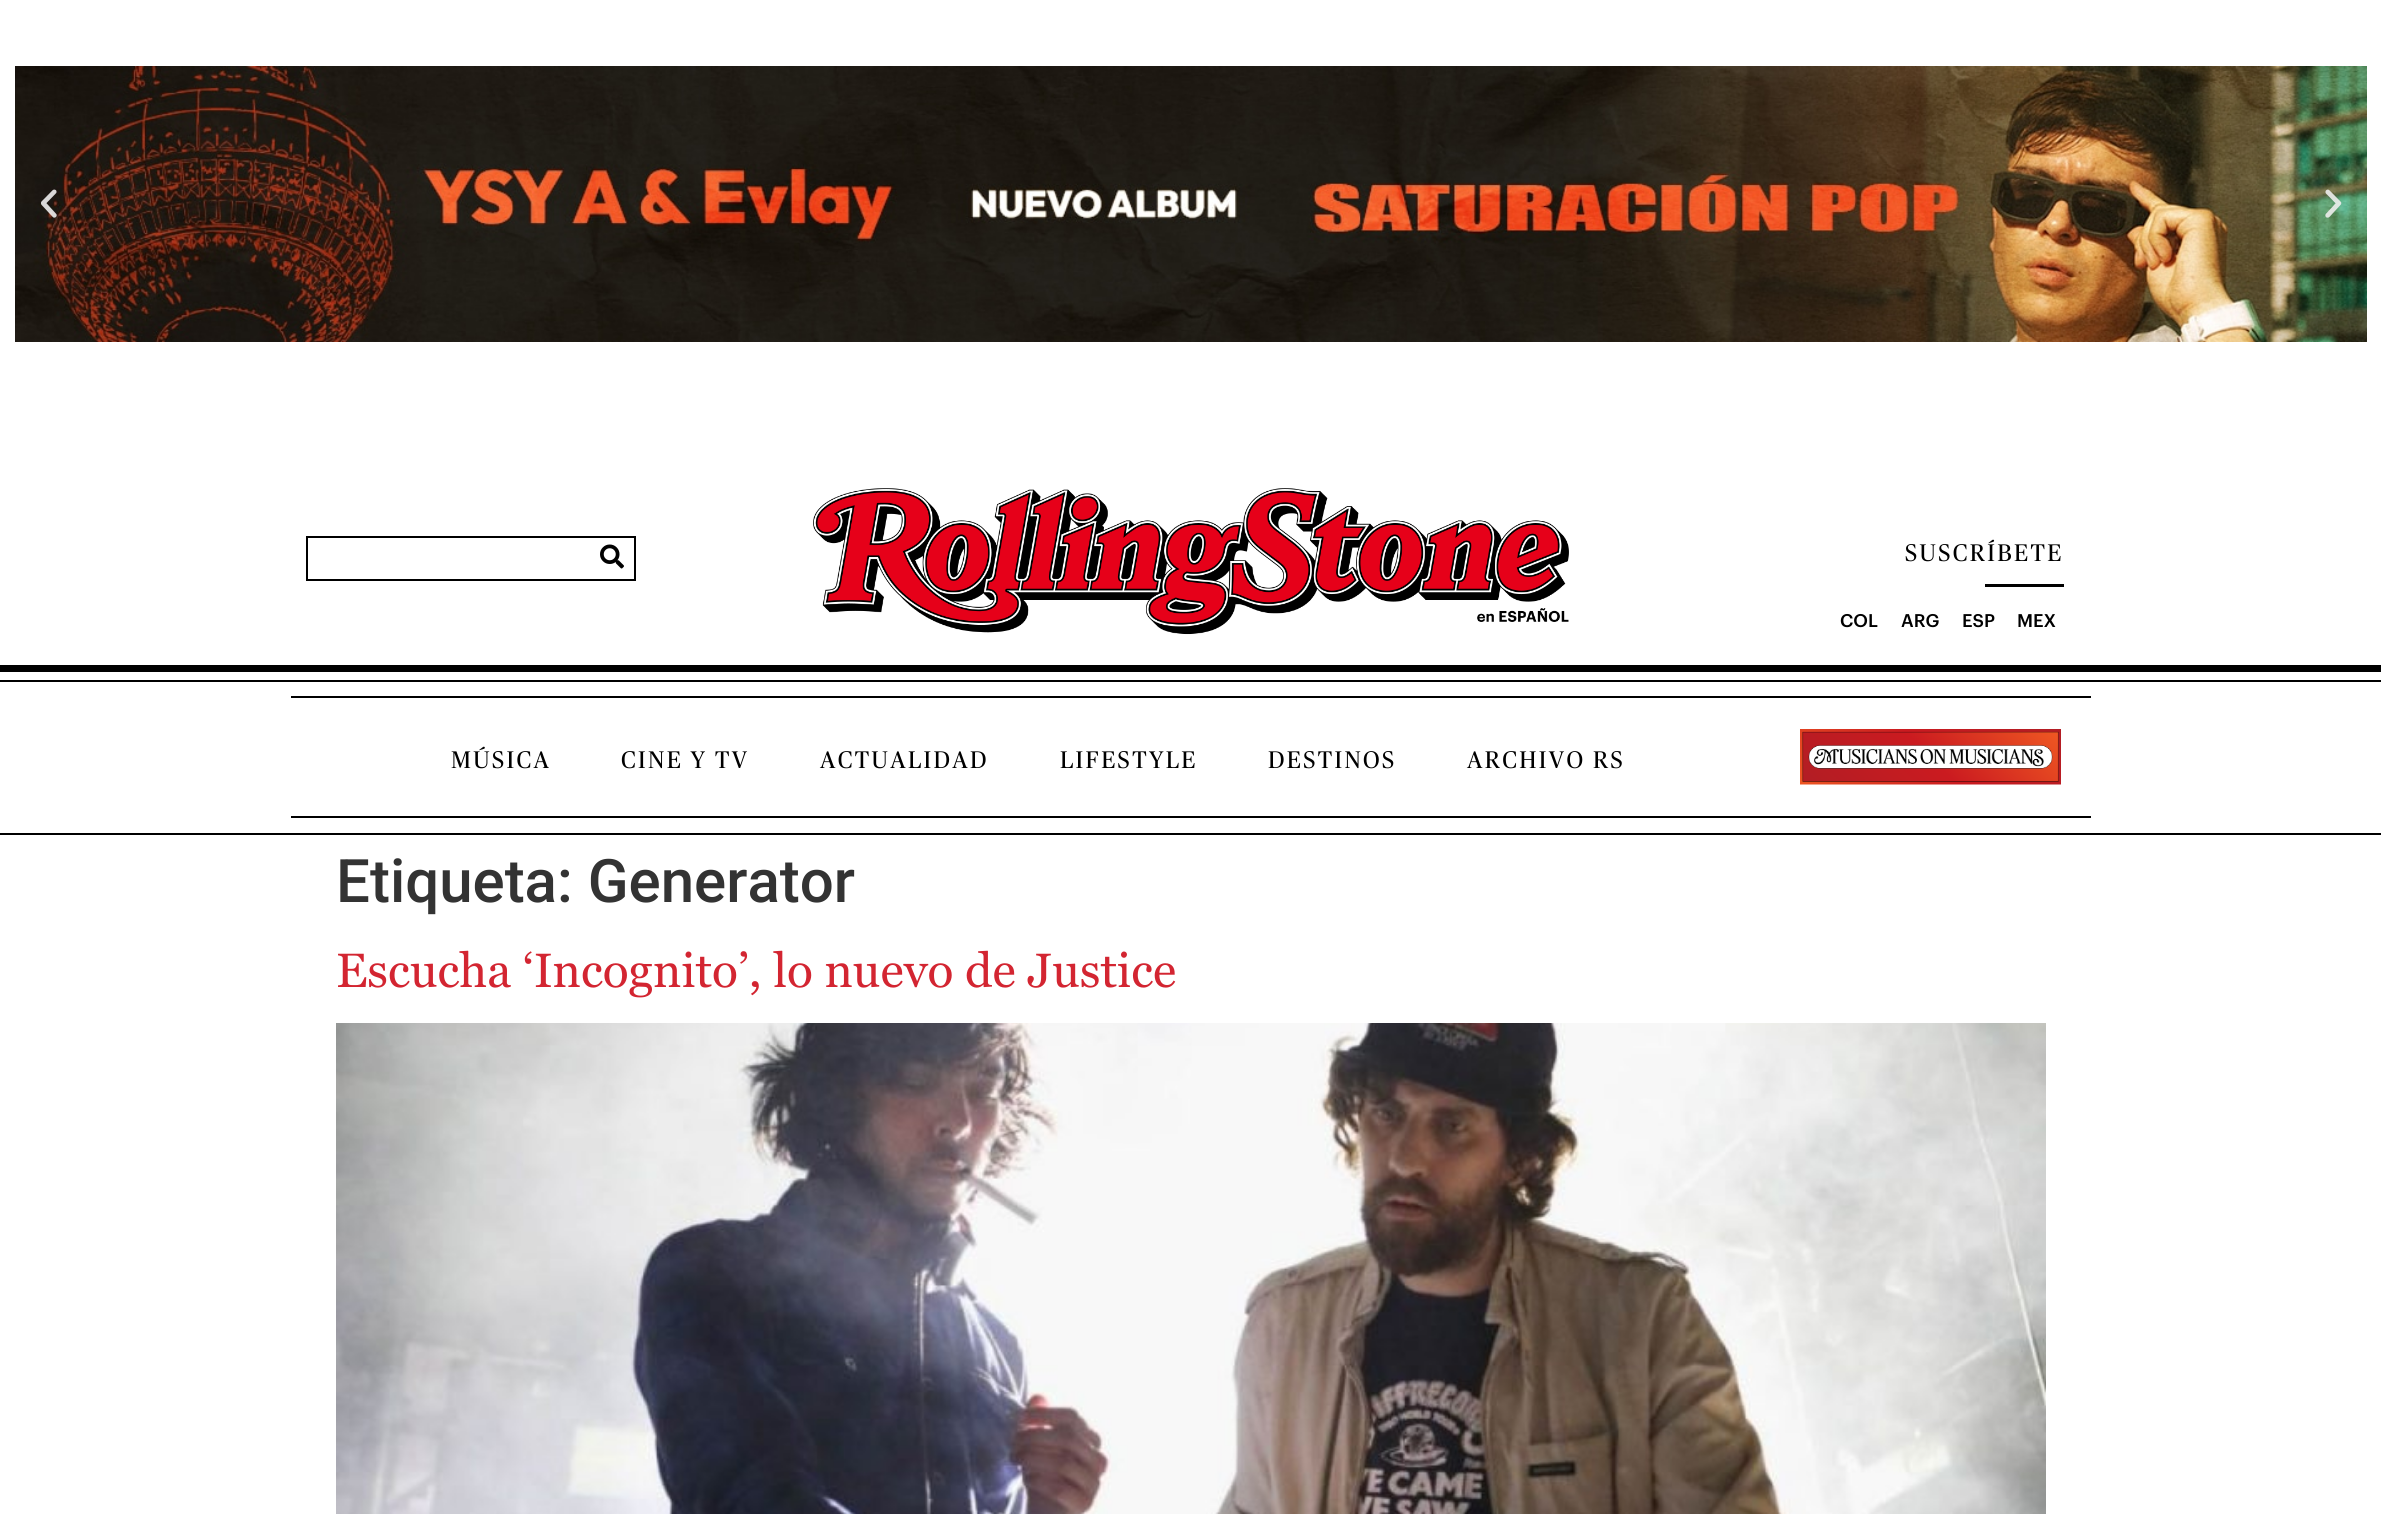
#include <cairo/cairo.h>
#include <math.h>
#include <stddef.h>

static cairo_t *cr;

static void use_color(int r, int g, int b) {
  cairo_set_source_rgb(cr, r / 255.0, g / 255.0, b / 255.0);
}

static void text(double x, double y, const char *s, const char *family, double size, int italic, int bold, int r, int g, int b) {
  cairo_select_font_face(cr, family, italic ? CAIRO_FONT_SLANT_ITALIC : CAIRO_FONT_SLANT_NORMAL,
    bold ? CAIRO_FONT_WEIGHT_BOLD : CAIRO_FONT_WEIGHT_NORMAL);
  cairo_set_font_size(cr, size);
  use_color(r, g, b);
  cairo_move_to(cr, x, y);
  cairo_show_text(cr, s);
}

static void spaced_text(double x, double y, const char *s, double letter, double word) {
  cairo_move_to(cr, x, y);
  while (*s) {
    char ch[5] = {0};
    int n = 0;
    do ch[n++] = *s++; while ((*s & 0xC0) == 0x80);
    cairo_show_text(cr, ch);
    cairo_rel_move_to(cr, letter + word * (*ch == ' '), 0);
  }
}

static void box(double x, double y, double w, double h, int r, int g, int b) {
  use_color(r, g, b);
  cairo_rectangle(cr, x, y, w, h);
  cairo_fill(cr);
}

static void picture(const char *path, double x, double y, double w, double h) {
  cairo_surface_t *image = cairo_image_surface_create_from_png(path);
  cairo_save(cr);
  cairo_set_source_surface(cr, image, x, y);
  cairo_rectangle(cr, x, y, w, h);
  cairo_fill(cr);
  cairo_restore(cr);
  cairo_surface_destroy(image);
}

static void draw(void) {
  use_color(255, 255, 255);
  cairo_paint(cr);
  picture("img_01.png", 15, 66, 2352, 276);
  picture("img_02.png", 41, 189, 16, 29);
  picture("img_03.png", 2325, 189, 17, 29);
  cairo_rectangle(cr, 307, 537, 328, 43);
  use_color(0, 0, 0);
  cairo_stroke(cr);
  picture("img_04.png", 600, 544, 24, 25);
  picture("img_05.png", 813, 488, 756, 147);
  box(1985, 584, 79, 3, 0, 0, 0);
  box(0, 665, 2381, 7, 0, 0, 0);
  box(0, 680, 2381, 2, 0, 0, 0);
  box(0, 833, 2381, 2, 0, 0, 0);
  box(291, 696, 1800, 2, 0, 0, 0);
  box(291, 816, 1800, 2, 0, 0, 0);
  picture("img_06.png", 1800, 729, 261, 56);
  picture("img_07.png", 336, 1023, 1710, 491);
  cairo_select_font_face(cr, "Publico", CAIRO_FONT_SLANT_NORMAL, CAIRO_FONT_WEIGHT_NORMAL);
  cairo_set_font_size(cr, 24);
  spaced_text(1905, 561, "SUSCRÍBETE", 2.4, 0);
  text(1840, 627, "COL", "Graphik Medium", 18, 0, 0, 0, 0, 0);
  text(1901, 627, "ARG", "Graphik Medium", 18, 0, 0, 0, 0, 0);
  text(1962, 627, "ESP", "Graphik Medium", 18, 0, 0, 0, 0, 0);
  text(2017, 627, "MEX", "Graphik Medium", 18, 0, 0, 0, 0, 0);
  cairo_select_font_face(cr, "Publico", CAIRO_FONT_SLANT_NORMAL, CAIRO_FONT_WEIGHT_NORMAL);
  cairo_set_font_size(cr, 24);
  spaced_text(451, 768, "MÚSICA", 2.4, 0);
  spaced_text(621, 768, "CINE Y TV", 2.4, 0);
  spaced_text(820, 768, "ACTUALIDAD", 2.4, 0);
  spaced_text(1060, 768, "LIFESTYLE", 2.4, 0);
  spaced_text(1268, 768, "DESTINOS", 2.4, 0);
  spaced_text(1467, 768, "ARCHIVO RS", 2.4, 0);
  text(336, 902, "Etiqueta: Generator", "Roboto Medium", 60, 0, 0, 51, 51, 51);
  text(336, 987, "Escucha ‘Incognito’, lo nuevo de Justice", "Georgia", 48, 0, 0, 211, 37, 49);
}

int main(void) {
  cairo_surface_t *surface = cairo_image_surface_create(CAIRO_FORMAT_RGB24, 2381, 1514);
  cr = cairo_create(surface);
  cairo_font_options_t *options = cairo_font_options_create();
  cairo_font_options_set_hint_metrics(options, CAIRO_HINT_METRICS_OFF);
  cairo_font_options_set_hint_style(options, CAIRO_HINT_STYLE_NONE);
  cairo_set_font_options(cr, options);
  cairo_set_miter_limit(cr, 4);
  draw();
  cairo_surface_write_to_png(surface, "out.png");
  cairo_font_options_destroy(options);
  cairo_destroy(cr);
  cairo_surface_destroy(surface);
  return 0;
}
